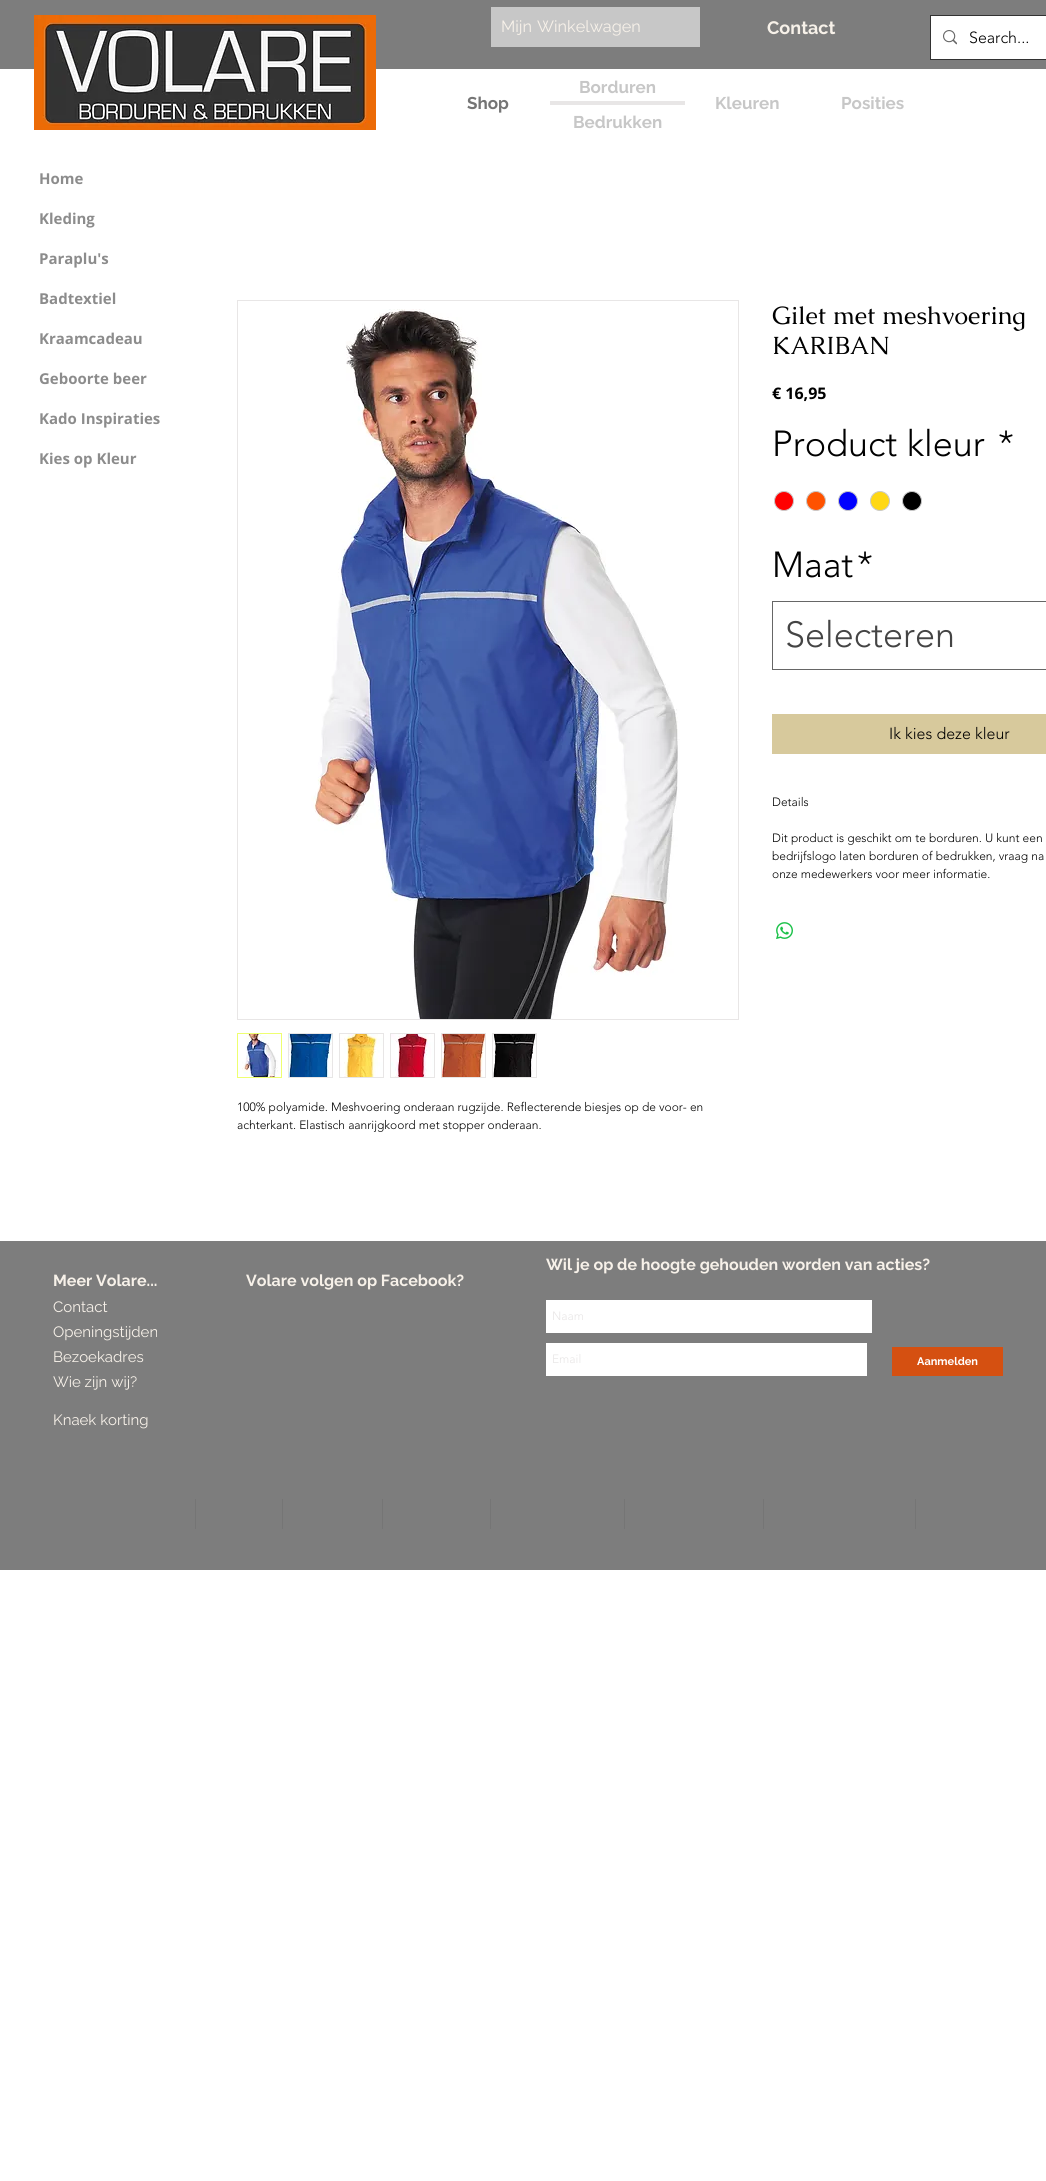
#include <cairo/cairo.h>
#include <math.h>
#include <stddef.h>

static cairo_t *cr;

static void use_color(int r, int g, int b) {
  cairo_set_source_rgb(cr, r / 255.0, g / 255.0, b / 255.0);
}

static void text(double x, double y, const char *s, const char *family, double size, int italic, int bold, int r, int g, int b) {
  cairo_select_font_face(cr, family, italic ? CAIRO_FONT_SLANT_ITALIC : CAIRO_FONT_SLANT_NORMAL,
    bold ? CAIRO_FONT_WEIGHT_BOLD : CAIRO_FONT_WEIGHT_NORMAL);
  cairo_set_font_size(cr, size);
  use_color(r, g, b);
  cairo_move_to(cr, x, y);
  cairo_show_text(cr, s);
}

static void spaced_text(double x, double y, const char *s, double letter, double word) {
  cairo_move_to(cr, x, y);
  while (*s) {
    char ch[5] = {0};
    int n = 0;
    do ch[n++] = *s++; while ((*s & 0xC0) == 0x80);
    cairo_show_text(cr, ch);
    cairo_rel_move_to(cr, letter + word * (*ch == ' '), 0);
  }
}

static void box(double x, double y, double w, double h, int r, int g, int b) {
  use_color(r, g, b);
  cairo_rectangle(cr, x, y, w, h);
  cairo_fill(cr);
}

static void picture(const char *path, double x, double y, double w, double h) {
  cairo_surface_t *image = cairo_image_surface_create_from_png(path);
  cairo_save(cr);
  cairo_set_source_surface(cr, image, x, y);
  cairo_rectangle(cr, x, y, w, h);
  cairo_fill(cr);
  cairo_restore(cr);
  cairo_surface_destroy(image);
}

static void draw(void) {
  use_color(255, 255, 255);
  cairo_paint(cr);
  box(0, 0, 1046, 69, 125, 125, 125);
  picture("img_01.png", 34, 15, 342, 115);
  box(491, 7, 209, 40, 199, 199, 199);
  cairo_rectangle(cr, 930.5, 15.5, 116, 44);
  use_color(50, 50, 50);
  cairo_set_line_width(cr, 1);
  cairo_stroke(cr);
  box(931, 16, 115, 43, 255, 255, 255);
  picture("img_02.png", 943, 30, 14, 15);
  box(550, 101, 135, 4, 232, 230, 230);
  use_color(255, 0, 0);
  cairo_arc(cr, 784, 501, 9.5, 0, 2 * M_PI);
  cairo_fill_preserve(cr);
  use_color(201, 201, 201);
  cairo_stroke(cr);
  use_color(255, 82, 0);
  cairo_arc(cr, 816, 501, 9.5, 0, 2 * M_PI);
  cairo_fill_preserve(cr);
  use_color(201, 201, 201);
  cairo_stroke(cr);
  use_color(0, 0, 255);
  cairo_arc(cr, 848, 501, 9.5, 0, 2 * M_PI);
  cairo_fill_preserve(cr);
  use_color(201, 201, 201);
  cairo_stroke(cr);
  use_color(255, 216, 20);
  cairo_arc(cr, 880, 501, 9.5, 0, 2 * M_PI);
  cairo_fill_preserve(cr);
  use_color(201, 201, 201);
  cairo_stroke(cr);
  use_color(0, 0, 0);
  cairo_arc(cr, 912, 501, 9.5, 0, 2 * M_PI);
  cairo_fill_preserve(cr);
  use_color(201, 201, 201);
  cairo_stroke(cr);
  cairo_rectangle(cr, 772.5, 601.5, 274, 68);
  use_color(102, 102, 102);
  cairo_stroke(cr);
  box(772, 714, 274, 40, 215, 201, 156);
  picture("img_03.png", 776, 922, 17, 17);
  cairo_rectangle(cr, 237.5, 300.5, 501, 719);
  use_color(232, 230, 230);
  cairo_stroke(cr);
  picture("img_04.png", 311, 309, 369, 710);
  cairo_rectangle(cr, 237.5, 1033.5, 44, 44);
  use_color(238, 255, 112);
  cairo_stroke(cr);
  picture("img_05.png", 238, 1034, 43, 43);
  box(288, 1033, 45, 45, 232, 230, 230);
  picture("img_06.png", 289, 1034, 43, 43);
  box(339, 1033, 45, 45, 232, 230, 230);
  picture("img_07.png", 340, 1034, 43, 43);
  box(390, 1033, 45, 45, 232, 230, 230);
  picture("img_08.png", 391, 1034, 43, 43);
  box(441, 1033, 45, 45, 232, 230, 230);
  picture("img_09.png", 442, 1034, 43, 43);
  box(492, 1033, 45, 45, 232, 230, 230);
  picture("img_10.png", 493, 1034, 43, 43);
  box(0, 1241, 1046, 329, 125, 125, 125);
  box(546, 1300, 326, 33, 255, 255, 255);
  box(546, 1343, 321, 33, 255, 255, 255);
  box(892, 1347, 111, 29, 213, 80, 17);
  box(195, 1499, 1, 30, 117, 117, 117);
  box(282, 1499, 1, 30, 117, 117, 117);
  box(382, 1499, 1, 30, 117, 117, 117);
  box(490, 1499, 1, 30, 117, 117, 117);
  box(624, 1499, 1, 30, 117, 117, 117);
  box(763, 1499, 1, 30, 117, 117, 117);
  box(915, 1499, 1, 30, 117, 117, 117);
  cairo_select_font_face(cr, "Raleway", CAIRO_FONT_SLANT_NORMAL, CAIRO_FONT_WEIGHT_NORMAL);
  cairo_set_font_size(cr, 16.25);
  use_color(247, 241, 233);
  spaced_text(501, 32, "Mijn Winkelwagen", 0, 1);
  text(767, 34, "Contact", "Raleway", 18, 0, 1, 247, 241, 233);
  text(969, 43, "Search...", "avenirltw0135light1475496 Light", 16, 0, 0, 0, 0, 0);
  text(579, 93, "Borduren", "Raleway", 17, 0, 1, 199, 199, 199);
  text(467, 109, "Shop", "Raleway", 17, 0, 1, 117, 117, 117);
  text(715, 109, "Kleuren", "Raleway", 17, 0, 1, 199, 199, 199);
  text(841, 109, "Posities", "Raleway", 17, 0, 1, 199, 199, 199);
  text(573, 128, "Bedrukken", "Raleway", 17, 0, 1, 199, 199, 199);
  text(39, 184, "Home", "Open Sans", 15, 0, 1, 140, 140, 140);
  text(39, 224, "Kleding", "Open Sans", 15, 0, 1, 140, 140, 140);
  text(39, 264, "Paraplu's", "Open Sans", 15, 0, 1, 140, 140, 140);
  text(39, 304, "Badtextiel", "Open Sans", 15, 0, 1, 140, 140, 140);
  text(39, 344, "Kraamcadeau", "Open Sans", 15, 0, 1, 140, 140, 140);
  text(39, 384, "Geboorte beer", "Open Sans", 15, 0, 1, 140, 140, 140);
  text(39, 424, "Kado Inspiraties", "Open Sans", 15, 0, 1, 140, 140, 140);
  text(39, 464, "Kies op Kleur", "Open Sans", 15, 0, 1, 140, 140, 140);
  text(772, 324, "Gilet met meshvoering", "Caudex", 25, 0, 0, 0, 0, 0);
  text(772, 354, "KARIBAN", "Caudex", 25, 0, 0, 0, 0, 0);
  text(772, 399, "€ 16,95", "Open Sans", 16, 0, 1, 0, 0, 0);
  text(772, 456, "Product kleur", "avenirltw0135light1475496 Light", 36, 0, 0, 0, 0, 0);
  text(998, 456, "*", "avenirltw0135light1475496 Light", 36, 0, 0, 0, 0, 0);
  text(772, 577, "Maat", "avenirltw0135light1475496 Light", 36, 0, 0, 0, 0, 0);
  text(857, 577, "*", "avenirltw0135light1475496 Light", 36, 0, 0, 0, 0, 0);
  text(785, 647, "Selecteren", "avenirltw0135light1475496 Light", 36, 0, 0, 68, 68, 68);
  text(889, 739, "Ik kies deze kleur", "avenirltw0135light1475496 Light", 16, 0, 0, 0, 0, 0);
  text(772, 806, "Details", "avenirltw0135light1475496 Light", 12, 0, 0, 0, 0, 0);
  text(772, 842, "Dit product is geschikt om te borduren. U kunt een", "avenirltw0135light1475496 Light", 12, 0, 0, 0, 0, 0);
  text(772, 860, "bedrijfslogo laten borduren of bedrukken, vraag na", "avenirltw0135light1475496 Light", 12, 0, 0, 0, 0, 0);
  text(772, 878, "onze medewerkers voor meer informatie.", "avenirltw0135light1475496 Light", 12, 0, 0, 0, 0, 0);
  text(237, 1111, "100% polyamide. Meshvoering onderaan rugzijde. Reflecterende biesjes op de voor- en", "avenirltw0135light1475496 Light", 12, 0, 0, 0, 0, 0);
  text(237, 1129, "achterkant. Elastisch aanrijgkoord met stopper onderaan.", "avenirltw0135light1475496 Light", 12, 0, 0, 0, 0, 0);
  text(53, 1286, "Meer Volare...", "Raleway", 16, 0, 1, 247, 241, 233);
  text(246, 1286, "Volare volgen op Facebook?", "Raleway", 16, 0, 1, 247, 241, 233);
  text(546, 1270, "Wil je op de hoogte gehouden worden van acties?", "Raleway", 16, 0, 1, 247, 241, 233);
  text(552, 1320, "Naam", "avenirltw0135light1475496 Light", 12, 0, 0, 232, 230, 230);
  text(552, 1363, "Email", "avenirltw0135light1475496 Light", 12, 0, 0, 232, 230, 230);
  text(917, 1365, "Aanmelden", "Raleway", 11, 0, 1, 255, 255, 255);
  text(53, 1312, "Contact", "Raleway", 15, 0, 0, 247, 241, 233);
  text(53, 1337, "Openingstijden", "Raleway", 15, 0, 0, 247, 241, 233);
  text(53, 1362, "Bezoekadres", "Raleway", 15, 0, 0, 247, 241, 233);
  text(53, 1387, "Wie zijn wij?", "Raleway", 15, 0, 0, 247, 241, 233);
  text(53, 1425, "Knaek korting", "Raleway", 15, 0, 0, 247, 241, 233);
}

int main(void) {
  cairo_surface_t *surface = cairo_image_surface_create(CAIRO_FORMAT_RGB24, 1046, 2181);
  cr = cairo_create(surface);
  cairo_font_options_t *options = cairo_font_options_create();
  cairo_font_options_set_hint_metrics(options, CAIRO_HINT_METRICS_OFF);
  cairo_font_options_set_hint_style(options, CAIRO_HINT_STYLE_NONE);
  cairo_set_font_options(cr, options);
  cairo_set_miter_limit(cr, 4);
  draw();
  cairo_surface_write_to_png(surface, "out.png");
  cairo_font_options_destroy(options);
  cairo_destroy(cr);
  cairo_surface_destroy(surface);
  return 0;
}
